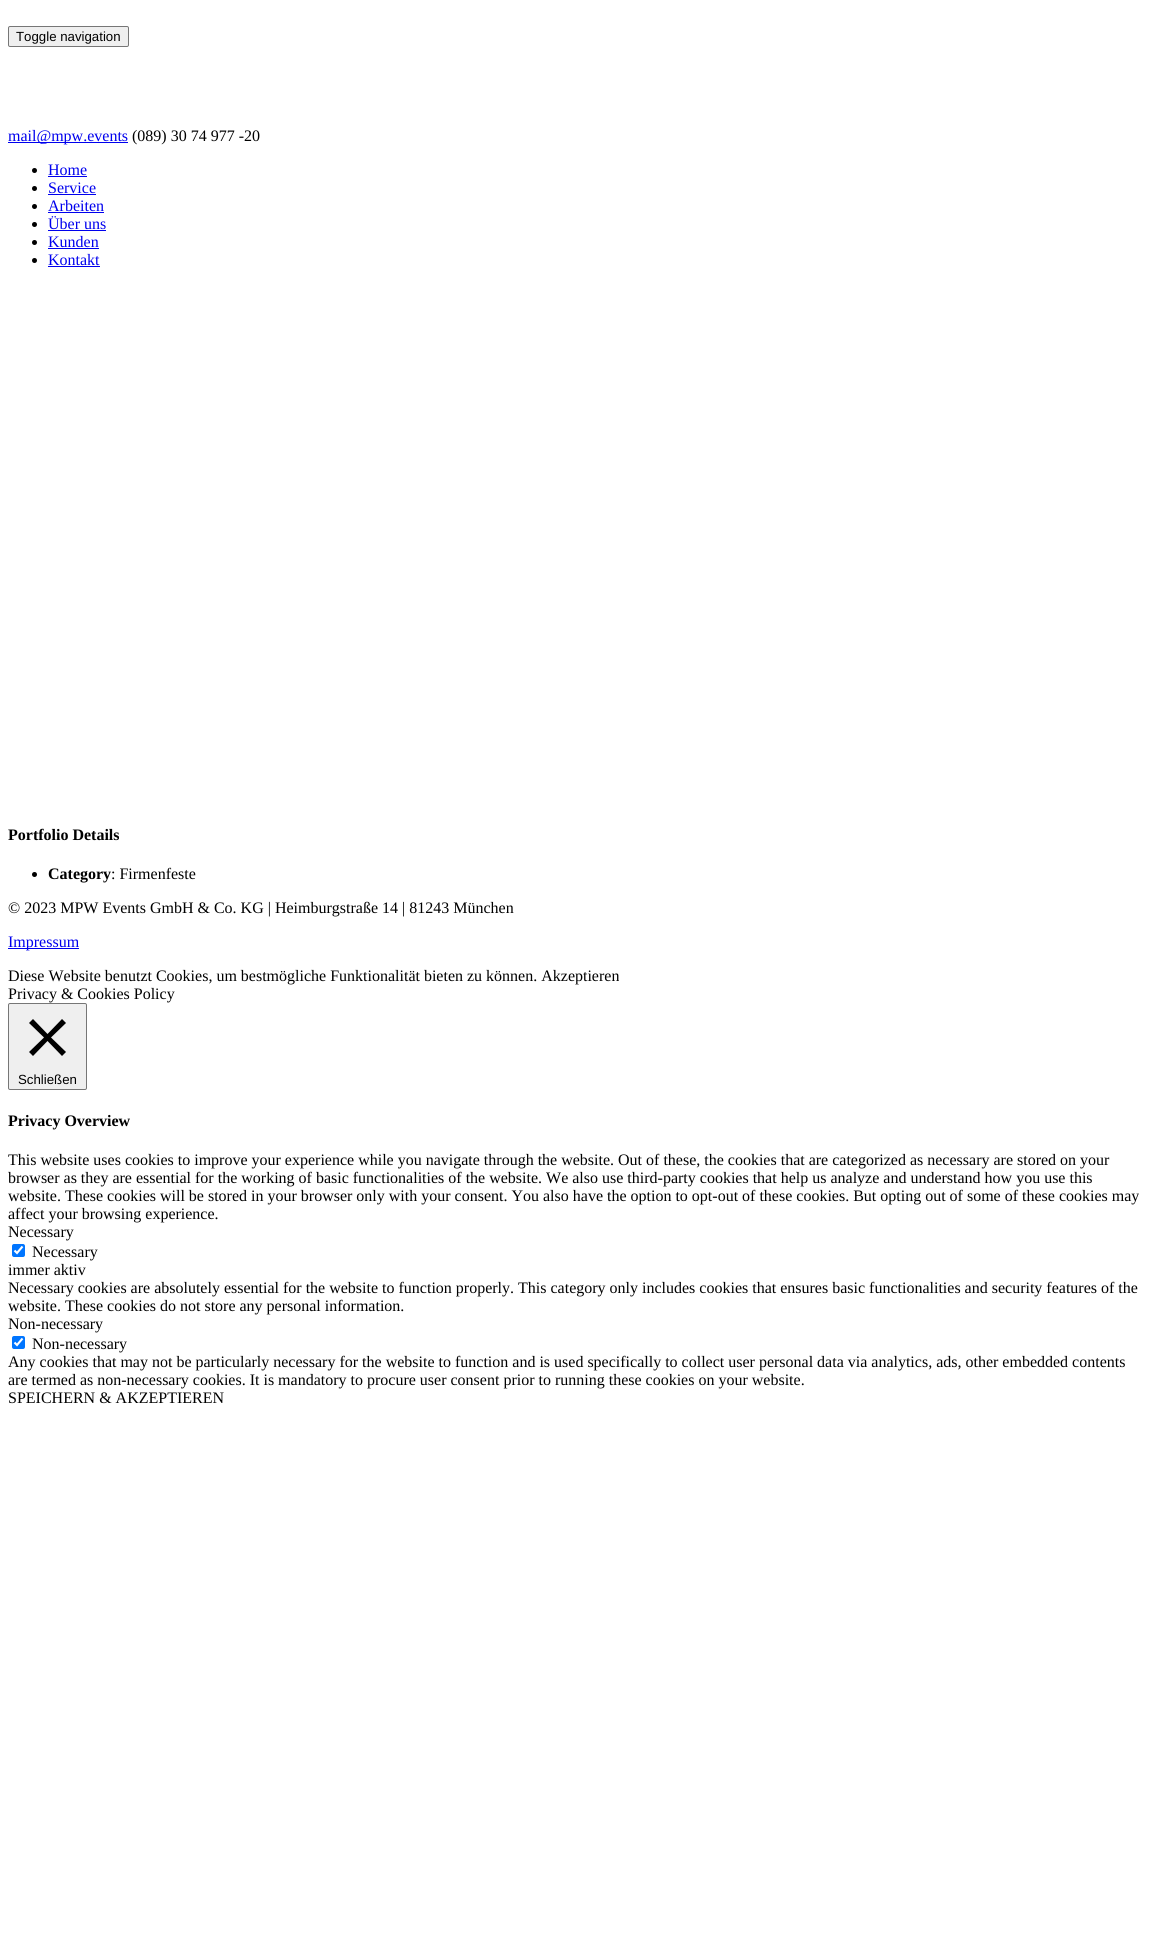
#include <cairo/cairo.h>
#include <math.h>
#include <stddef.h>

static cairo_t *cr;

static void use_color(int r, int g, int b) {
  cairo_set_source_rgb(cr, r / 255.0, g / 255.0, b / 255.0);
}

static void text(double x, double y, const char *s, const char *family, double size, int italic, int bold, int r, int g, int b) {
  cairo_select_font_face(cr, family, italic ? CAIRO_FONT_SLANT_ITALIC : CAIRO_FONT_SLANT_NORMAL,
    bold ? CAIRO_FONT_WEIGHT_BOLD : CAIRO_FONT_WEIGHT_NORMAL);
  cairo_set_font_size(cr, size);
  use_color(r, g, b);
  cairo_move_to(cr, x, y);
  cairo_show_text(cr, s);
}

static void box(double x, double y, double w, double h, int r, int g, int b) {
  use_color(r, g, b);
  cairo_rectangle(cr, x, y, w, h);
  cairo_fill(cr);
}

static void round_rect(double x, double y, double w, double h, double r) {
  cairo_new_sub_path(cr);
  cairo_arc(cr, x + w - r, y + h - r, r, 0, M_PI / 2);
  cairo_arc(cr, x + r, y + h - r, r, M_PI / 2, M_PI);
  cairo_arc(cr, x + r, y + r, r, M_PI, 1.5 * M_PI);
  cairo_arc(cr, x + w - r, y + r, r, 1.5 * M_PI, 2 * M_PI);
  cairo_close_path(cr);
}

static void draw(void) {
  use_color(255, 255, 255);
  cairo_paint(cr);
  use_color(239, 239, 239);
  round_rect(8.5, 26.5, 120, 20, 1.5);
  cairo_fill_preserve(cr);
  use_color(118, 118, 118);
  cairo_set_line_width(cr, 1);
  cairo_stroke(cr);
  box(8, 142, 120, 1, 0, 0, 238);
  use_color(0, 0, 0);
  cairo_arc(cr, 34.5, 170.5, 2.5, 0, 2 * M_PI);
  cairo_fill(cr);
  box(48, 176, 39, 1, 0, 0, 238);
  use_color(0, 0, 0);
  cairo_arc(cr, 34.5, 188.5, 2.5, 0, 2 * M_PI);
  cairo_fill(cr);
  box(48, 194, 48, 1, 0, 0, 238);
  use_color(0, 0, 0);
  cairo_arc(cr, 34.5, 206.5, 2.5, 0, 2 * M_PI);
  cairo_fill(cr);
  box(48, 212, 56, 1, 0, 0, 238);
  use_color(0, 0, 0);
  cairo_arc(cr, 34.5, 224.5, 2.5, 0, 2 * M_PI);
  cairo_fill(cr);
  box(48, 230, 58, 1, 0, 0, 238);
  use_color(0, 0, 0);
  cairo_arc(cr, 34.5, 242.5, 2.5, 0, 2 * M_PI);
  cairo_fill(cr);
  box(48, 248, 51, 1, 0, 0, 238);
  use_color(0, 0, 0);
  cairo_arc(cr, 34.5, 260.5, 2.5, 0, 2 * M_PI);
  cairo_fill(cr);
  box(48, 266, 52, 1, 0, 0, 238);
  use_color(0, 0, 0);
  cairo_arc(cr, 34.5, 874.5, 2.5, 0, 2 * M_PI);
  cairo_fill(cr);
  box(8, 948, 71, 1, 0, 0, 238);
  use_color(239, 239, 239);
  round_rect(8.5, 1003.5, 78, 86, 1.5);
  cairo_fill_preserve(cr);
  use_color(118, 118, 118);
  cairo_stroke(cr);
  use_color(0, 0, 0);
  cairo_new_path(cr);
  cairo_move_to(cr, 66, 1023);
  cairo_line_to(cr, 62, 1019);
  cairo_line_to(cr, 47.5, 1034);
  cairo_line_to(cr, 33, 1019);
  cairo_line_to(cr, 29, 1023);
  cairo_line_to(cr, 44, 1037.5);
  cairo_line_to(cr, 29, 1052);
  cairo_line_to(cr, 33, 1056);
  cairo_line_to(cr, 47.5, 1041);
  cairo_line_to(cr, 62, 1056);
  cairo_line_to(cr, 66, 1052);
  cairo_line_to(cr, 51, 1037.5);
  cairo_close_path(cr);
  cairo_fill(cr);
  use_color(0, 117, 255);
  round_rect(12, 1244, 13, 13, 2);
  cairo_fill(cr);
  cairo_new_path(cr);
  cairo_move_to(cr, 14.5, 1250.5);
  cairo_line_to(cr, 17, 1253);
  cairo_line_to(cr, 22.5, 1246.5);
  use_color(255, 255, 255);
  cairo_set_line_width(cr, 2.1);
  cairo_stroke(cr);
  use_color(0, 117, 255);
  round_rect(12, 1336, 13, 13, 2);
  cairo_fill(cr);
  cairo_new_path(cr);
  cairo_move_to(cr, 14.5, 1342.5);
  cairo_line_to(cr, 17, 1345);
  cairo_line_to(cr, 22.5, 1338.5);
  use_color(255, 255, 255);
  cairo_stroke(cr);
  text(16, 41, "Toggle navigation", "Liberation Sans", 13.25, 0, 0, 0, 0, 0);
  text(8, 141, "mail@mpw.events", "Liberation Serif", 16, 0, 0, 0, 0, 238);
  text(132, 141, "(089) 30 74 977 -20", "Liberation Serif", 16, 0, 0, 0, 0, 0);
  text(48, 175, "Home", "Liberation Serif", 16, 0, 0, 0, 0, 238);
  text(48, 193, "Service", "Liberation Serif", 16, 0, 0, 0, 0, 238);
  text(48, 211, "Arbeiten", "Liberation Serif", 16, 0, 0, 0, 0, 238);
  text(48, 229, "Über uns", "Liberation Serif", 16, 0, 0, 0, 0, 238);
  text(48, 247, "Kunden", "Liberation Serif", 16, 0, 0, 0, 0, 238);
  text(48, 265, "Kontakt", "Liberation Serif", 16, 0, 0, 0, 0, 238);
  text(8, 840, "Portfolio Details", "Liberation Serif", 16, 0, 1, 0, 0, 0);
  text(48, 879, "Category", "Liberation Serif", 16, 0, 1, 0, 0, 0);
  text(111, 879, ": Firmenfeste", "Liberation Serif", 16, 0, 0, 0, 0, 0);
  text(8, 913, "© 2023 MPW Events GmbH & Co. KG | Heimburgstraße 14 | 81243 München", "Liberation Serif", 16, 0, 0, 0, 0, 0);
  text(8, 947, "Impressum", "Liberation Serif", 16, 0, 0, 0, 0, 238);
  text(8, 981, "Diese Website benutzt Cookies, um bestmögliche Funktionalität bieten zu können. Akzeptieren", "Liberation Serif", 16, 0, 0, 0, 0, 0);
  text(8, 999, "Privacy & Cookies Policy", "Liberation Serif", 16, 0, 0, 0, 0, 0);
  text(18, 1084, "Schließen", "Liberation Sans", 13.25, 0, 0, 0, 0, 0);
  text(8, 1126, "Privacy Overview", "Liberation Serif", 16, 0, 1, 0, 0, 0);
  text(8, 1165, "This website uses cookies to improve your experience while you navigate through the website. Out of these, the cookies that are categorized as necessary are stored on your", "Liberation Serif", 16, 0, 0, 0, 0, 0);
  text(8, 1183, "browser as they are essential for the working of basic functionalities of the website. We also use third-party cookies that help us analyze and understand how you use this", "Liberation Serif", 16, 0, 0, 0, 0, 0);
  text(8, 1201, "website. These cookies will be stored in your browser only with your consent. You also have the option to opt-out of these cookies. But opting out of some of these cookies may", "Liberation Serif", 16, 0, 0, 0, 0, 0);
  text(8, 1219, "affect your browsing experience.", "Liberation Serif", 16, 0, 0, 0, 0, 0);
  text(8, 1237, "Necessary", "Liberation Serif", 16, 0, 0, 0, 0, 0);
  text(32, 1257, "Necessary", "Liberation Serif", 16, 0, 0, 0, 0, 0);
  text(8, 1275, "immer aktiv", "Liberation Serif", 16, 0, 0, 0, 0, 0);
  text(8, 1293, "Necessary cookies are absolutely essential for the website to function properly. This category only includes cookies that ensures basic functionalities and security features of the", "Liberation Serif", 16, 0, 0, 0, 0, 0);
  text(8, 1311, "website. These cookies do not store any personal information.", "Liberation Serif", 16, 0, 0, 0, 0, 0);
  text(8, 1329, "Non-necessary", "Liberation Serif", 16, 0, 0, 0, 0, 0);
  text(32, 1349, "Non-necessary", "Liberation Serif", 16, 0, 0, 0, 0, 0);
  text(8, 1367, "Any cookies that may not be particularly necessary for the website to function and is used specifically to collect user personal data via analytics, ads, other embedded contents", "Liberation Serif", 16, 0, 0, 0, 0, 0);
  text(8, 1385, "are termed as non-necessary cookies. It is mandatory to procure user consent prior to running these cookies on your website.", "Liberation Serif", 16, 0, 0, 0, 0, 0);
  text(8, 1403, "SPEICHERN & AKZEPTIEREN", "Liberation Serif", 16, 0, 0, 0, 0, 0);
}

int main(void) {
  cairo_surface_t *surface = cairo_image_surface_create(CAIRO_FORMAT_RGB24, 1149, 1952);
  cr = cairo_create(surface);
  cairo_font_options_t *options = cairo_font_options_create();
  cairo_font_options_set_hint_metrics(options, CAIRO_HINT_METRICS_OFF);
  cairo_font_options_set_hint_style(options, CAIRO_HINT_STYLE_NONE);
  cairo_set_font_options(cr, options);
  cairo_set_miter_limit(cr, 4);
  draw();
  cairo_surface_write_to_png(surface, "out.png");
  cairo_font_options_destroy(options);
  cairo_destroy(cr);
  cairo_surface_destroy(surface);
  return 0;
}
